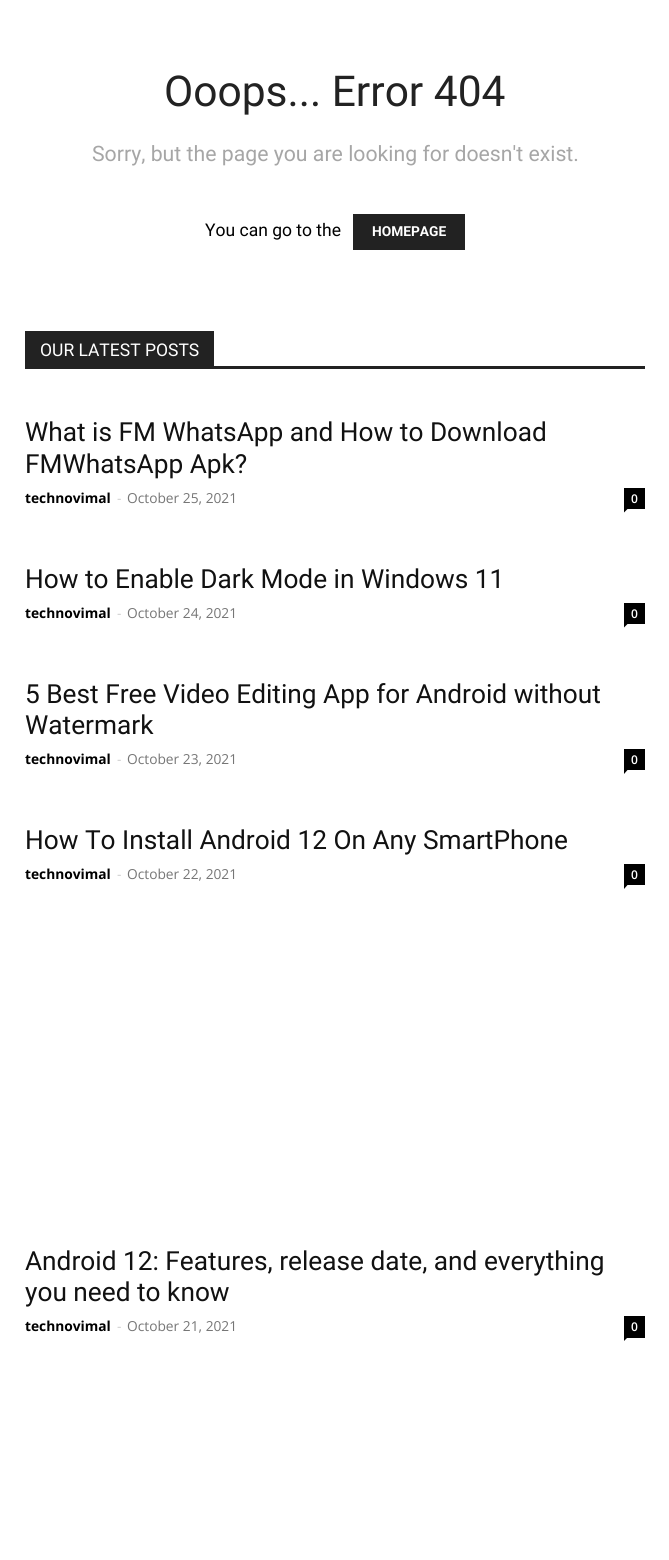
#include <cairo/cairo.h>
#include <math.h>
#include <stddef.h>

static cairo_t *cr;

static void use_color(int r, int g, int b) {
  cairo_set_source_rgb(cr, r / 255.0, g / 255.0, b / 255.0);
}

static void text(double x, double y, const char *s, const char *family, double size, int italic, int bold, int r, int g, int b) {
  cairo_select_font_face(cr, family, italic ? CAIRO_FONT_SLANT_ITALIC : CAIRO_FONT_SLANT_NORMAL,
    bold ? CAIRO_FONT_WEIGHT_BOLD : CAIRO_FONT_WEIGHT_NORMAL);
  cairo_set_font_size(cr, size);
  use_color(r, g, b);
  cairo_move_to(cr, x, y);
  cairo_show_text(cr, s);
}

static void box(double x, double y, double w, double h, int r, int g, int b) {
  use_color(r, g, b);
  cairo_rectangle(cr, x, y, w, h);
  cairo_fill(cr);
}

static void draw(void) {
  use_color(255, 255, 255);
  cairo_paint(cr);
  box(353, 214, 112, 36, 34, 34, 34);
  box(25, 366, 620, 3, 34, 34, 34);
  box(25, 331, 189, 35, 34, 34, 34);
  box(624, 488, 21, 21, 0, 0, 0);
  cairo_new_path(cr);
  cairo_move_to(cr, 624, 509);
  cairo_line_to(cr, 627.5, 509);
  cairo_line_to(cr, 624, 512.5);
  cairo_close_path(cr);
  cairo_fill(cr);
  box(624, 603, 21, 21, 0, 0, 0);
  cairo_new_path(cr);
  cairo_move_to(cr, 624, 624);
  cairo_line_to(cr, 627.5, 624);
  cairo_line_to(cr, 624, 627.5);
  cairo_close_path(cr);
  cairo_fill(cr);
  box(624, 749, 21, 21, 0, 0, 0);
  cairo_new_path(cr);
  cairo_move_to(cr, 624, 770);
  cairo_line_to(cr, 627.5, 770);
  cairo_line_to(cr, 624, 774);
  cairo_close_path(cr);
  cairo_fill(cr);
  box(624, 864, 21, 21, 0, 0, 0);
  cairo_new_path(cr);
  cairo_move_to(cr, 624, 885);
  cairo_line_to(cr, 627.5, 885);
  cairo_line_to(cr, 624, 889);
  cairo_close_path(cr);
  cairo_fill(cr);
  box(624, 1316, 21, 22, 0, 0, 0);
  cairo_new_path(cr);
  cairo_move_to(cr, 624, 1337.5);
  cairo_line_to(cr, 627.5, 1337.5);
  cairo_line_to(cr, 624, 1341);
  cairo_close_path(cr);
  cairo_fill(cr);
  text(164, 106, "Ooops... Error 404", "Roboto", 42.5, 0, 0, 34, 34, 34);
  text(92, 161, "Sorry, but the page you are looking for doesn't exist.", "Roboto", 21.25, 0, 0, 166, 166, 166);
  text(205, 236, "You can go to the", "Roboto", 17.5, 0, 0, 0, 0, 0);
  text(372, 236, "HOMEPAGE", "Roboto", 13.75, 0, 1, 255, 255, 255);
  text(40, 356, "OUR LATEST POSTS", "Roboto", 17.5, 0, 0, 255, 255, 255);
  text(25, 441, "What is FM WhatsApp and How to Download", "Roboto", 26.25, 0, 0, 17, 17, 17);
  text(25, 473, "FMWhatsApp Apk?", "Roboto", 26.25, 0, 0, 17, 17, 17);
  text(25, 503, "technovimal", "Open Sans", 13.75, 0, 1, 0, 0, 0);
  text(117, 503, "-", "Open Sans", 13.75, 0, 0, 204, 204, 204);
  text(127, 503, "October 25, 2021", "Open Sans", 13.75, 0, 0, 118, 118, 118);
  text(631, 503, "0", "Open Sans SemiBold", 12, 0, 0, 255, 255, 255);
  text(25, 588, "How to Enable Dark Mode in Windows 11", "Roboto", 26.25, 0, 0, 17, 17, 17);
  text(25, 618, "technovimal", "Open Sans", 13.75, 0, 1, 0, 0, 0);
  text(117, 618, "-", "Open Sans", 13.75, 0, 0, 204, 204, 204);
  text(127, 618, "October 24, 2021", "Open Sans", 13.75, 0, 0, 118, 118, 118);
  text(631, 618, "0", "Open Sans SemiBold", 12, 0, 0, 255, 255, 255);
  text(25, 703, "5 Best Free Video Editing App for Android without", "Roboto", 26.25, 0, 0, 17, 17, 17);
  text(25, 734, "Watermark", "Roboto", 26.25, 0, 0, 17, 17, 17);
  text(25, 764, "technovimal", "Open Sans", 13.75, 0, 1, 0, 0, 0);
  text(117, 764, "-", "Open Sans", 13.75, 0, 0, 204, 204, 204);
  text(127, 764, "October 23, 2021", "Open Sans", 13.75, 0, 0, 118, 118, 118);
  text(631, 764, "0", "Open Sans SemiBold", 12, 0, 0, 255, 255, 255);
  text(25, 849, "How To Install Android 12 On Any SmartPhone", "Roboto", 26.25, 0, 0, 17, 17, 17);
  text(25, 879, "technovimal", "Open Sans", 13.75, 0, 1, 0, 0, 0);
  text(117, 879, "-", "Open Sans", 13.75, 0, 0, 204, 204, 204);
  text(127, 879, "October 22, 2021", "Open Sans", 13.75, 0, 0, 118, 118, 118);
  text(631, 879, "0", "Open Sans SemiBold", 12, 0, 0, 255, 255, 255);
  text(25, 1270, "Android 12: Features, release date, and everything", "Roboto", 26.25, 0, 0, 17, 17, 17);
  text(25, 1301, "you need to know", "Roboto", 26.25, 0, 0, 17, 17, 17);
  text(25, 1331, "technovimal", "Open Sans", 13.75, 0, 1, 0, 0, 0);
  text(117, 1331, "-", "Open Sans", 13.75, 0, 0, 204, 204, 204);
  text(127, 1331, "October 21, 2021", "Open Sans", 13.75, 0, 0, 118, 118, 118);
  text(631, 1331, "0", "Open Sans SemiBold", 12, 0, 0, 255, 255, 255);
}

int main(void) {
  cairo_surface_t *surface = cairo_image_surface_create(CAIRO_FORMAT_RGB24, 669, 1560);
  cr = cairo_create(surface);
  cairo_font_options_t *options = cairo_font_options_create();
  cairo_font_options_set_hint_metrics(options, CAIRO_HINT_METRICS_OFF);
  cairo_font_options_set_hint_style(options, CAIRO_HINT_STYLE_NONE);
  cairo_set_font_options(cr, options);
  cairo_set_miter_limit(cr, 4);
  draw();
  cairo_surface_write_to_png(surface, "out.png");
  cairo_font_options_destroy(options);
  cairo_destroy(cr);
  cairo_surface_destroy(surface);
  return 0;
}
